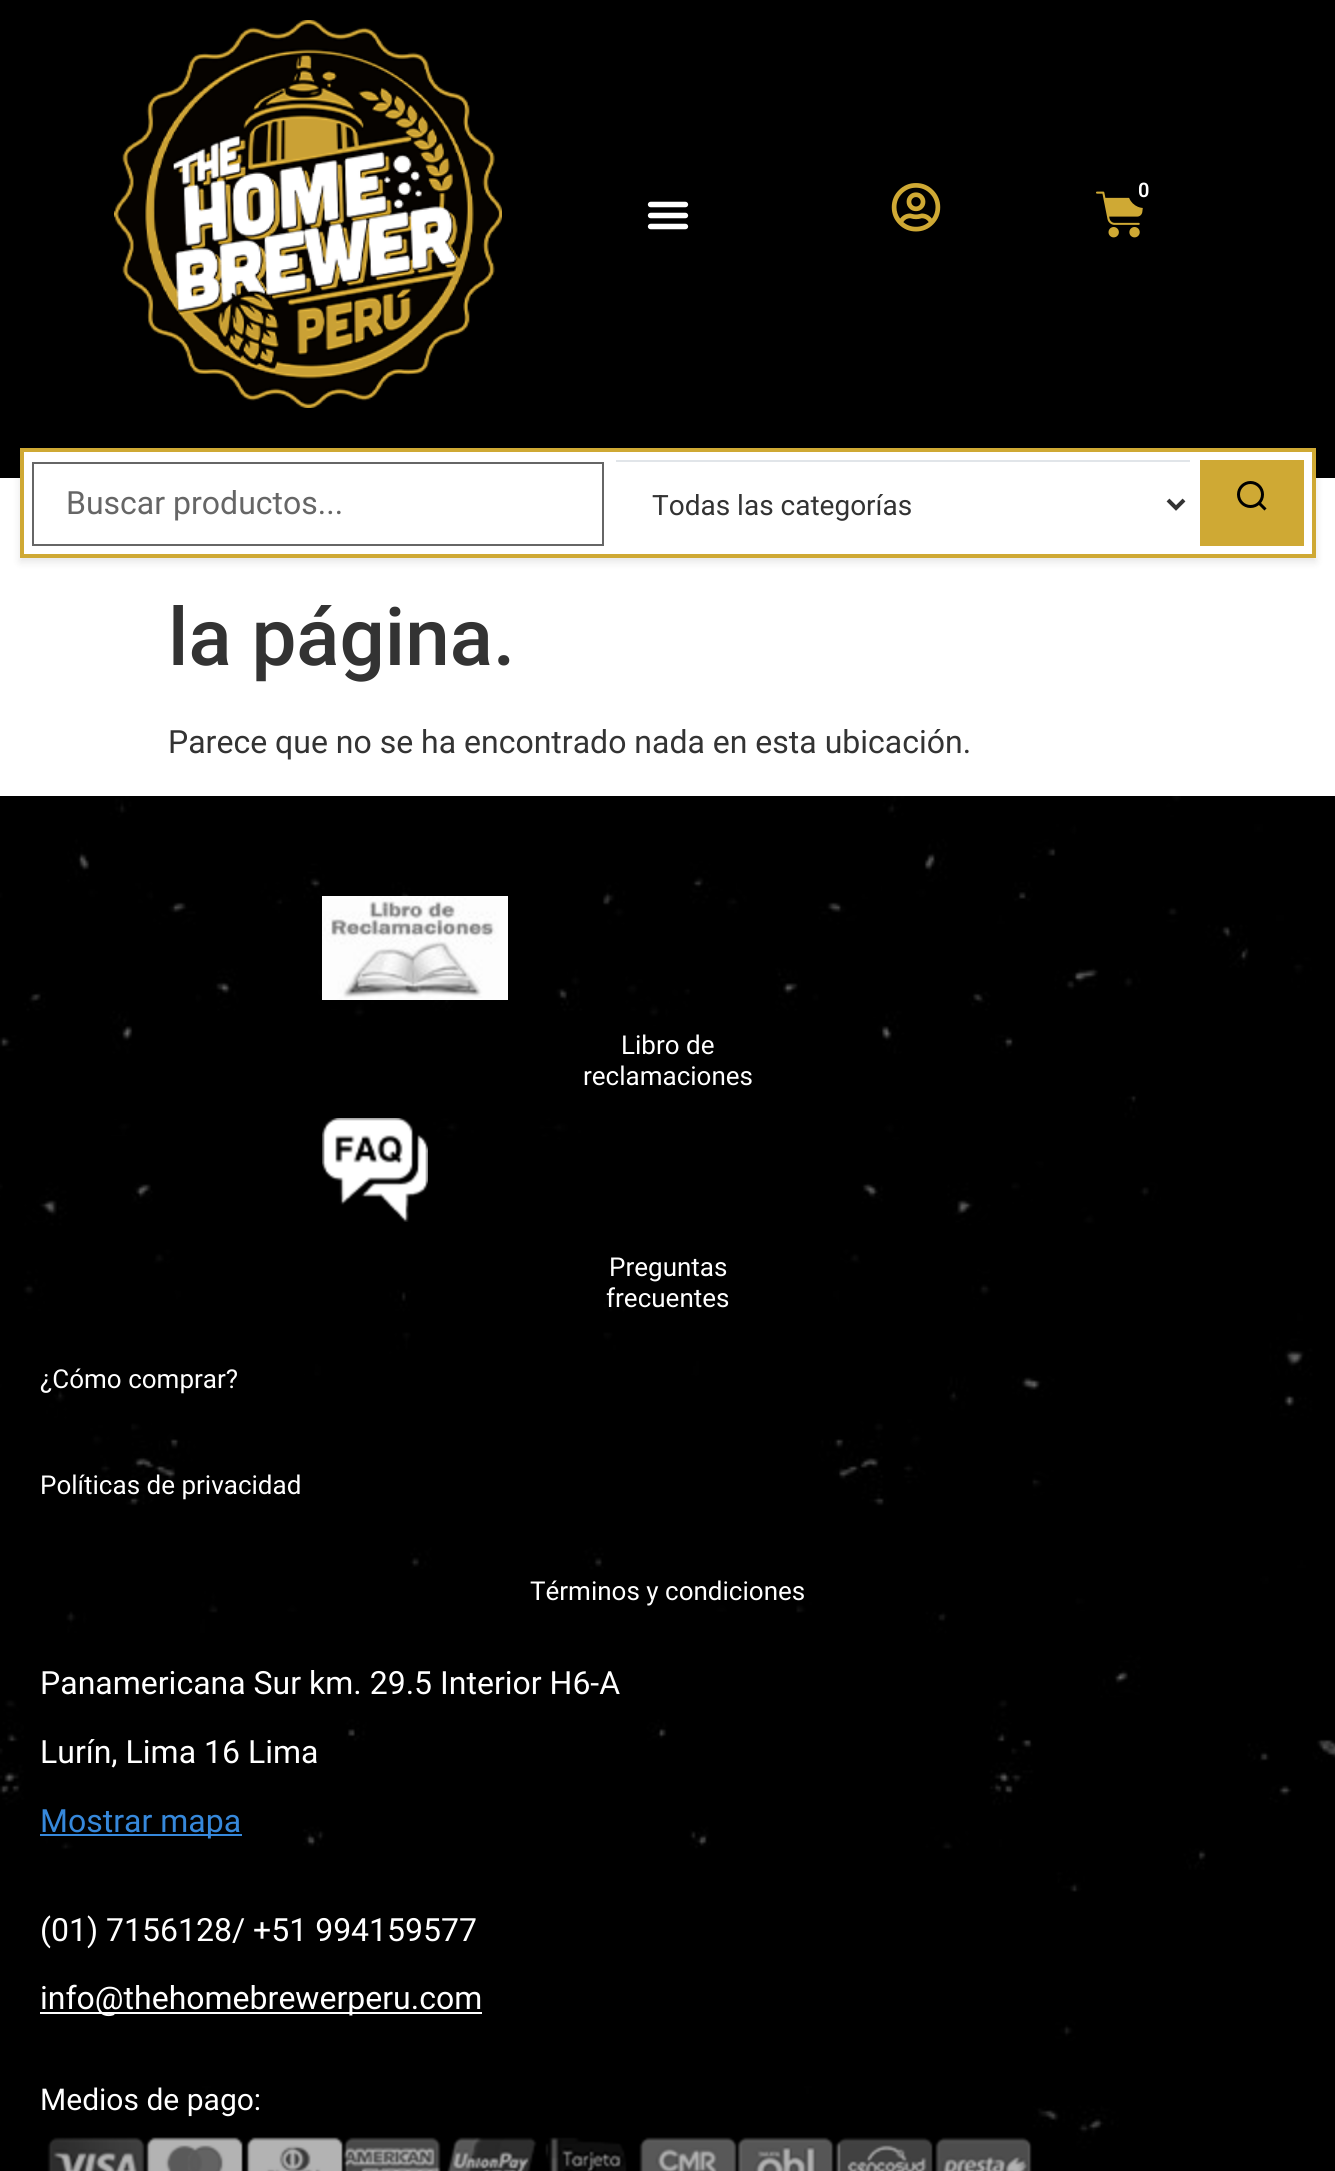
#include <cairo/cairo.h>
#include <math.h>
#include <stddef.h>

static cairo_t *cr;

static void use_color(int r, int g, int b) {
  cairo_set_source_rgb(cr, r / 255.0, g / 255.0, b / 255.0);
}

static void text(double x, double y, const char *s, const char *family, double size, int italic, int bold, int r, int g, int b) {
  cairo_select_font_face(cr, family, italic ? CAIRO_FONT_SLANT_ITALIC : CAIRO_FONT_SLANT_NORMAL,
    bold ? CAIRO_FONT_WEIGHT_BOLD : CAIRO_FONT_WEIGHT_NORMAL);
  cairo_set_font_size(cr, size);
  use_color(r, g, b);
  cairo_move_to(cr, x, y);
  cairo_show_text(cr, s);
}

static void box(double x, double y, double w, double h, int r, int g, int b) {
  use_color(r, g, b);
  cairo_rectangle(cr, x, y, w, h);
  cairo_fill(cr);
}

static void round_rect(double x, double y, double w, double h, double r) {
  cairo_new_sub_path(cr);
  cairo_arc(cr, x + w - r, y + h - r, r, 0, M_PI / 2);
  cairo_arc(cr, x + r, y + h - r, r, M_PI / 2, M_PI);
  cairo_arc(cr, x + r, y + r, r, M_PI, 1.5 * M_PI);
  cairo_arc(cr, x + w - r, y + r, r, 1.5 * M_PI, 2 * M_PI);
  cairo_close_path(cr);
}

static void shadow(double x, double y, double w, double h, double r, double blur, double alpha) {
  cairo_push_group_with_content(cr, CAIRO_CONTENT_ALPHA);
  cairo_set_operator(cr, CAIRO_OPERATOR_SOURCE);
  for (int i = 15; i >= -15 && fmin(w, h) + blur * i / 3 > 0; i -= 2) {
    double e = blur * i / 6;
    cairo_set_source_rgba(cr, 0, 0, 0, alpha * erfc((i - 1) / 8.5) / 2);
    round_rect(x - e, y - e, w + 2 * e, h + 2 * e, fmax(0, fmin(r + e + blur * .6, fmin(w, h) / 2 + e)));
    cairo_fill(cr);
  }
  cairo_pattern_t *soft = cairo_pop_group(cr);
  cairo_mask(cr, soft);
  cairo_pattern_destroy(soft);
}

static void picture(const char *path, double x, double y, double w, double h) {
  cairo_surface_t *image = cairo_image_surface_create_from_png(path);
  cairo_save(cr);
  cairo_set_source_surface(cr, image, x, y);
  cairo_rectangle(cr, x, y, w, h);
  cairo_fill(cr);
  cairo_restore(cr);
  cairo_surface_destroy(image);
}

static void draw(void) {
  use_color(255, 255, 255);
  cairo_paint(cr);
  box(0, 0, 1335, 478, 0, 0, 0);
  picture("img_01.png", 114, 20, 388, 388);
  picture("img_02.png", 891, 183, 50, 49);
  picture("img_03.png", 1096, 191, 47, 47);
  cairo_arc(cr, 1144, 192, 16, 0, 2 * M_PI);
  cairo_fill(cr);
  picture("img_04.png", 647, 201, 42, 29);
  use_color(0, 0, 0);
  shadow(20, 452, 1296, 110, 0, 4, 0.1);
  use_color(255, 255, 255);
  cairo_rectangle(cr, 22, 450, 1292, 106);
  cairo_fill_preserve(cr);
  use_color(207, 169, 52);
  cairo_set_line_width(cr, 4);
  cairo_stroke(cr);
  cairo_rectangle(cr, 33, 463, 570, 82);
  use_color(102, 102, 102);
  cairo_set_line_width(cr, 2);
  cairo_stroke(cr);
  box(616, 460, 574, 2, 225, 229, 233);
  cairo_new_path(cr);
  cairo_move_to(cr, 1168, 500);
  cairo_line_to(cr, 1176, 508);
  cairo_line_to(cr, 1184, 500);
  use_color(51, 51, 51);
  cairo_set_line_width(cr, 4);
  cairo_stroke(cr);
  box(1200, 460, 104, 86, 207, 169, 52);
  cairo_arc(cr, 1250.5, 494.5, 12, 0, 2 * M_PI);
  use_color(0, 0, 0);
  cairo_set_line_width(cr, 3);
  cairo_stroke(cr);
  cairo_new_path(cr);
  cairo_move_to(cr, 1265.5, 509.5);
  cairo_line_to(cr, 1259, 503);
  cairo_stroke(cr);
  picture("img_05.png", 0, 796, 1335, 1375);
  picture("img_06.png", 322, 896, 186, 104);
  picture("img_07.png", 322, 1118, 106, 104);
  box(40, 1834, 202, 2, 54, 136, 219);
  box(40, 2012, 442, 2, 255, 255, 255);
  picture("img_08.png", 47, 2137, 985, 34);
  text(1138, 197, "0", "Roboto SemiBold", 20, 0, 0, 255, 255, 255);
  text(66, 514, "Buscar productos...", "Roboto", 32, 0, 0, 102, 102, 102);
  text(652, 515, "Todas las categorías", "Roboto", 28, 0, 0, 51, 51, 51);
  text(168, 665, "la página.", "Roboto Medium", 80, 0, 0, 51, 51, 51);
  text(168, 753, "Parece que no se ha encontrado nada en esta ubicación.", "Roboto", 32, 0, 0, 51, 51, 51);
  text(621, 1054, "Libro de", "Heebo", 26, 0, 0, 255, 255, 255);
  text(583, 1085, "reclamaciones", "Heebo", 26, 0, 0, 255, 255, 255);
  text(609, 1276, "Preguntas", "Heebo", 26, 0, 0, 255, 255, 255);
  text(606, 1307, "frecuentes", "Heebo", 26, 0, 0, 255, 255, 255);
  text(40, 1388, "¿Cómo comprar?", "Heebo", 26, 0, 0, 255, 255, 255);
  text(40, 1494, "Políticas de privacidad", "Heebo", 26, 0, 0, 255, 255, 255);
  text(530, 1600, "Términos y condiciones", "Heebo", 26, 0, 0, 255, 255, 255);
  text(40, 1694, "Panamericana Sur km. 29.5 Interior H6-A", "Heebo", 32, 0, 0, 255, 255, 255);
  text(40, 1763, "Lurín, Lima 16 Lima", "Heebo", 32, 0, 0, 255, 255, 255);
  text(40, 1832, "Mostrar mapa", "Heebo", 32, 0, 0, 54, 136, 219);
  text(40, 1941, "(01) 7156128/ +51 994159577", "Heebo", 32, 0, 0, 255, 255, 255);
  text(40, 2009, "info@thehomebrewerperu.com", "Heebo", 32, 0, 0, 255, 255, 255);
  text(40, 2110, "Medios de pago:", "Heebo", 30, 0, 0, 255, 255, 255);
}

int main(void) {
  cairo_surface_t *surface = cairo_image_surface_create(CAIRO_FORMAT_RGB24, 1335, 2171);
  cr = cairo_create(surface);
  cairo_font_options_t *options = cairo_font_options_create();
  cairo_font_options_set_hint_metrics(options, CAIRO_HINT_METRICS_OFF);
  cairo_font_options_set_hint_style(options, CAIRO_HINT_STYLE_NONE);
  cairo_set_font_options(cr, options);
  cairo_set_miter_limit(cr, 4);
  draw();
  cairo_surface_write_to_png(surface, "out.png");
  cairo_font_options_destroy(options);
  cairo_destroy(cr);
  cairo_surface_destroy(surface);
  return 0;
}
